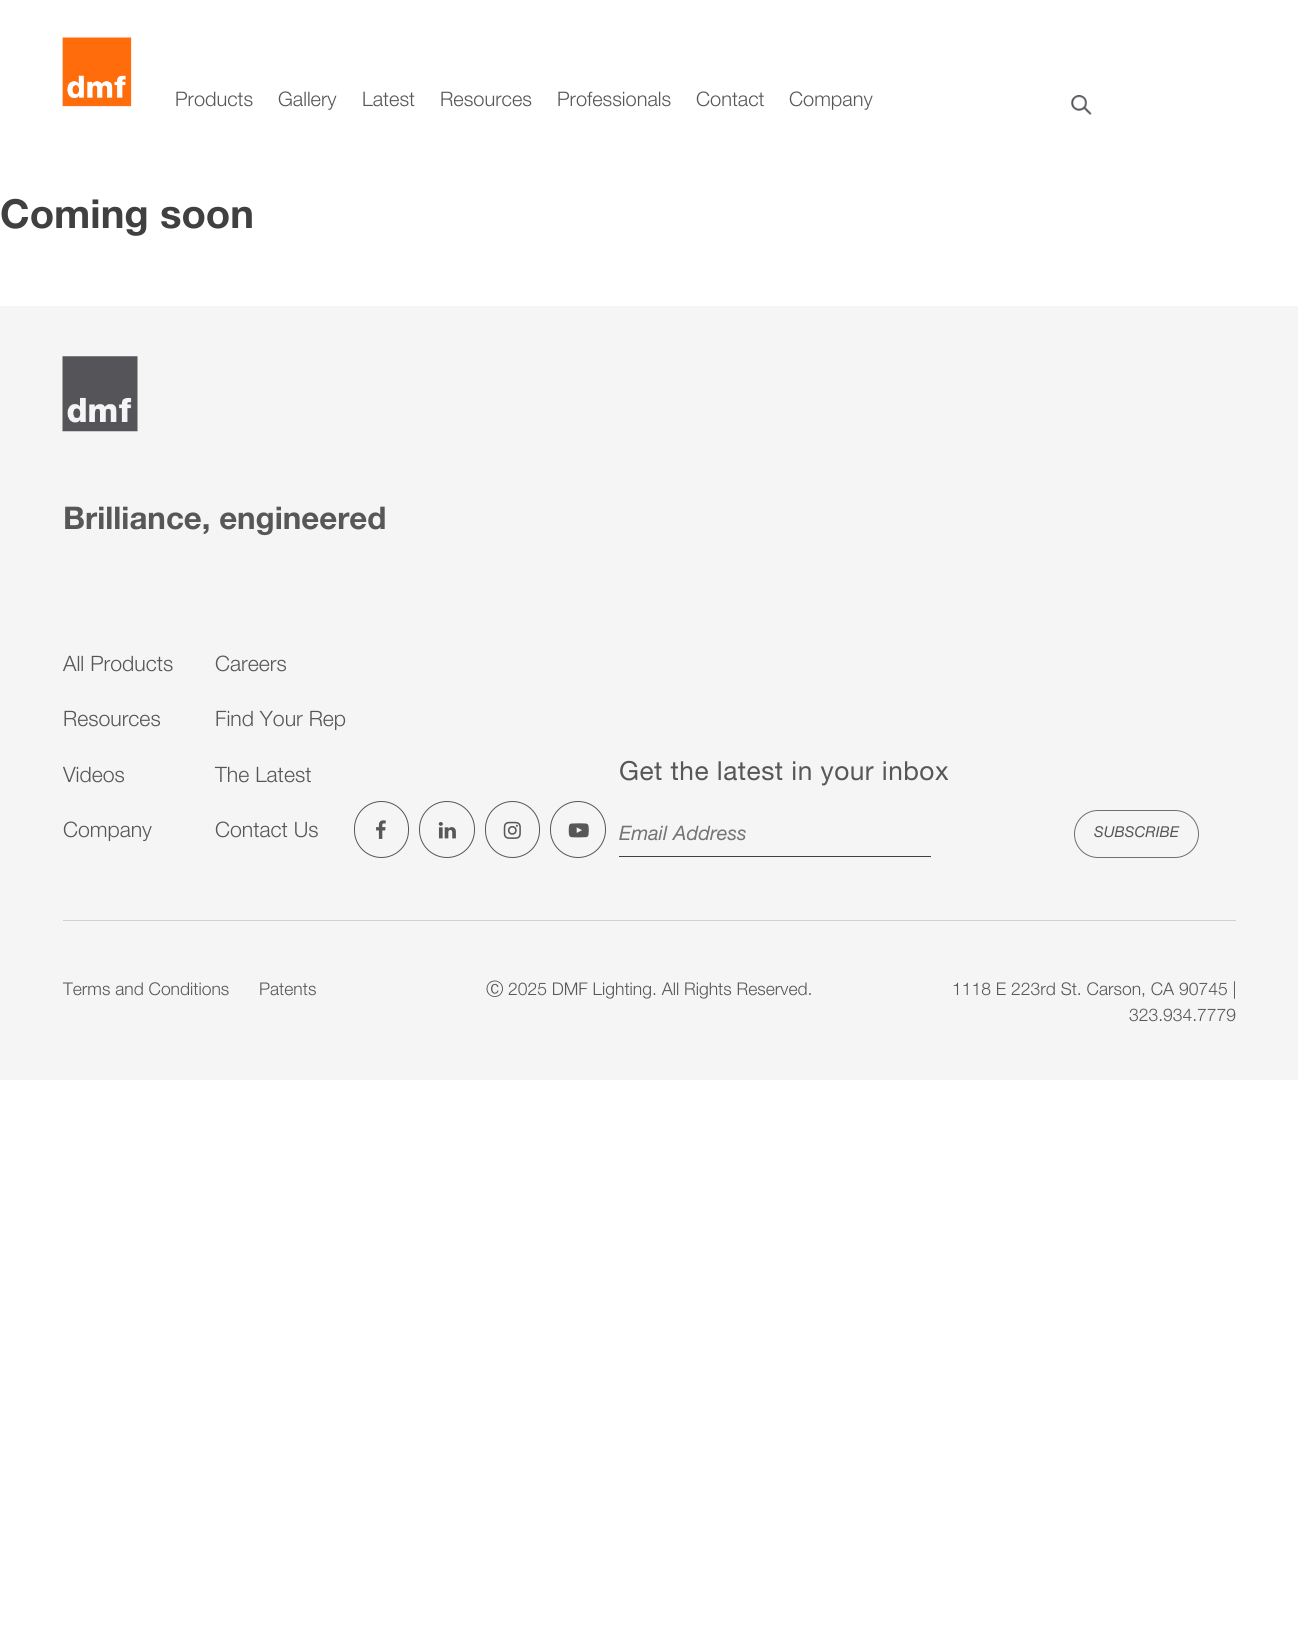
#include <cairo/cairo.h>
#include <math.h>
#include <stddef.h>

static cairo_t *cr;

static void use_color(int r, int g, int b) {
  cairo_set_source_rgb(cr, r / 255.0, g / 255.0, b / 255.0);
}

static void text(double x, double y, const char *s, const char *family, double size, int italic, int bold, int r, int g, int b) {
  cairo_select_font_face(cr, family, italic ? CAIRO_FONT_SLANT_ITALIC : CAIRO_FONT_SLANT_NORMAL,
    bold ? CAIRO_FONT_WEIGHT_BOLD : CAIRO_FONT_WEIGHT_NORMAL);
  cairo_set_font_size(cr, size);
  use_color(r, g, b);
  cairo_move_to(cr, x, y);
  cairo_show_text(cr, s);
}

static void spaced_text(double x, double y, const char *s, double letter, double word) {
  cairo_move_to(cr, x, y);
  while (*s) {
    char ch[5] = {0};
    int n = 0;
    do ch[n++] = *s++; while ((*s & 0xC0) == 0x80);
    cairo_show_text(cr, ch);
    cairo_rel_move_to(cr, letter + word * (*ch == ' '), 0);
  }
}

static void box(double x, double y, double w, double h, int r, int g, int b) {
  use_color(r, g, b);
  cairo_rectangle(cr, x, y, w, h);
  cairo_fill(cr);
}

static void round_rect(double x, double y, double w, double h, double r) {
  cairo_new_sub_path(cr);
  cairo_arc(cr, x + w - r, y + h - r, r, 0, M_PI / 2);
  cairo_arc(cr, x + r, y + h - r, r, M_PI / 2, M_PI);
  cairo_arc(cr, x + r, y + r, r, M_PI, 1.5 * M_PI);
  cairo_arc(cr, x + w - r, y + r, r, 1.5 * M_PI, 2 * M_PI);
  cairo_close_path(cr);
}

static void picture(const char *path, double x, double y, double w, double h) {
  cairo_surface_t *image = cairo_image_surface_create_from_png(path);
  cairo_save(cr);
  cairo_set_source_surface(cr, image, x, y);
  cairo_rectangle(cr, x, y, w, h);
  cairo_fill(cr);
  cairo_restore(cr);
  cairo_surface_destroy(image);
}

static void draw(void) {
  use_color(255, 255, 255);
  cairo_paint(cr);
  picture("img_01.png", 62, 37, 70, 70);
  picture("img_02.png", 1071, 95, 21, 20);
  box(0, 306, 1298, 774, 245, 245, 245);
  picture("img_03.png", 62, 356, 76, 76);
  round_rect(354.5, 801.5, 54, 56, 27);
  use_color(87, 87, 87);
  cairo_set_line_width(cr, 1);
  cairo_stroke(cr);
  picture("img_04.png", 376, 820, 10, 19);
  round_rect(419.5, 801.5, 55, 56, 27.5);
  cairo_stroke(cr);
  picture("img_05.png", 438, 822, 18, 17);
  round_rect(485.5, 801.5, 54, 56, 27);
  cairo_stroke(cr);
  picture("img_06.png", 503, 821, 18, 18);
  round_rect(550.5, 801.5, 55, 56, 27.5);
  cairo_stroke(cr);
  picture("img_07.png", 568, 823, 21, 15);
  box(619, 856, 312, 1, 64, 64, 64);
  round_rect(1074.5, 810.5, 124, 47, 23.5);
  use_color(112, 112, 112);
  cairo_stroke(cr);
  box(63, 920, 1173, 1, 209, 209, 209);
  text(175, 106, "Products", "Helvetica Neue Light", 20, 0, 0, 87, 87, 87);
  text(278, 106, "Gallery", "Helvetica Neue Light", 20, 0, 0, 87, 87, 87);
  text(362, 106, "Latest", "Helvetica Neue Light", 20, 0, 0, 87, 87, 87);
  text(440, 106, "Resources", "Helvetica Neue Light", 20, 0, 0, 87, 87, 87);
  text(557, 106, "Professionals", "Helvetica Neue Light", 20, 0, 0, 87, 87, 87);
  text(696, 106, "Contact", "Helvetica Neue Light", 20, 0, 0, 87, 87, 87);
  text(789, 106, "Company", "Helvetica Neue Light", 20, 0, 0, 87, 87, 87);
  text(0, 228, "Coming soon", "Helvetica Neue", 40, 0, 1, 64, 64, 64);
  text(63, 529, "Brilliance, engineered", "Helvetica Neue", 31.25, 0, 1, 87, 87, 87);
  text(63, 671, "All Products", "Helvetica Neue Light", 21.25, 0, 0, 87, 87, 87);
  text(215, 671, "Careers", "Helvetica Neue Light", 21.25, 0, 0, 87, 87, 87);
  text(63, 726, "Resources", "Helvetica Neue Light", 21.25, 0, 0, 87, 87, 87);
  text(215, 726, "Find Your Rep", "Helvetica Neue Light", 21.25, 0, 0, 87, 87, 87);
  text(63, 782, "Videos", "Helvetica Neue Light", 21.25, 0, 0, 87, 87, 87);
  text(215, 782, "The Latest", "Helvetica Neue Light", 21.25, 0, 0, 87, 87, 87);
  text(63, 837, "Company", "Helvetica Neue Light", 21.25, 0, 0, 87, 87, 87);
  text(215, 837, "Contact Us", "Helvetica Neue Light", 21.25, 0, 0, 87, 87, 87);
  cairo_select_font_face(cr, "Helvetica Neue", CAIRO_FONT_SLANT_NORMAL, CAIRO_FONT_WEIGHT_NORMAL);
  cairo_set_font_size(cr, 26.25);
  spaced_text(619, 780, "Get the latest in your inbox", 0.5, 0);
  text(619, 840, "Email Address", "Helvetica Neue", 20, 1, 0, 117, 117, 117);
  text(1094, 837, "SUBSCRIBE", "Helvetica Neue", 15, 1, 0, 87, 87, 87);
  text(63, 995, "Terms and Conditions", "Helvetica Neue Light", 17.5, 0, 0, 87, 87, 87);
  text(259, 995, "Patents", "Helvetica Neue Light", 17.5, 0, 0, 87, 87, 87);
  text(486, 995, "Ⓒ", "WenQuanYi Zen Hei Medium", 17.5, 0, 0, 87, 87, 87);
  text(508, 995, "2025 DMF Lighting. All Rights Reserved.", "Helvetica Neue Light", 17.5, 0, 0, 87, 87, 87);
  text(952, 995, "1118 E 223rd St. Carson, CA 90745 |", "Helvetica Neue Light", 17.5, 0, 0, 87, 87, 87);
  text(1129, 1021, "323.934.7779", "Helvetica Neue Light", 17.5, 0, 0, 87, 87, 87);
}

int main(void) {
  cairo_surface_t *surface = cairo_image_surface_create(CAIRO_FORMAT_RGB24, 1298, 1650);
  cr = cairo_create(surface);
  cairo_font_options_t *options = cairo_font_options_create();
  cairo_font_options_set_hint_metrics(options, CAIRO_HINT_METRICS_OFF);
  cairo_font_options_set_hint_style(options, CAIRO_HINT_STYLE_NONE);
  cairo_set_font_options(cr, options);
  cairo_set_miter_limit(cr, 4);
  draw();
  cairo_surface_write_to_png(surface, "out.png");
  cairo_font_options_destroy(options);
  cairo_destroy(cr);
  cairo_surface_destroy(surface);
  return 0;
}
